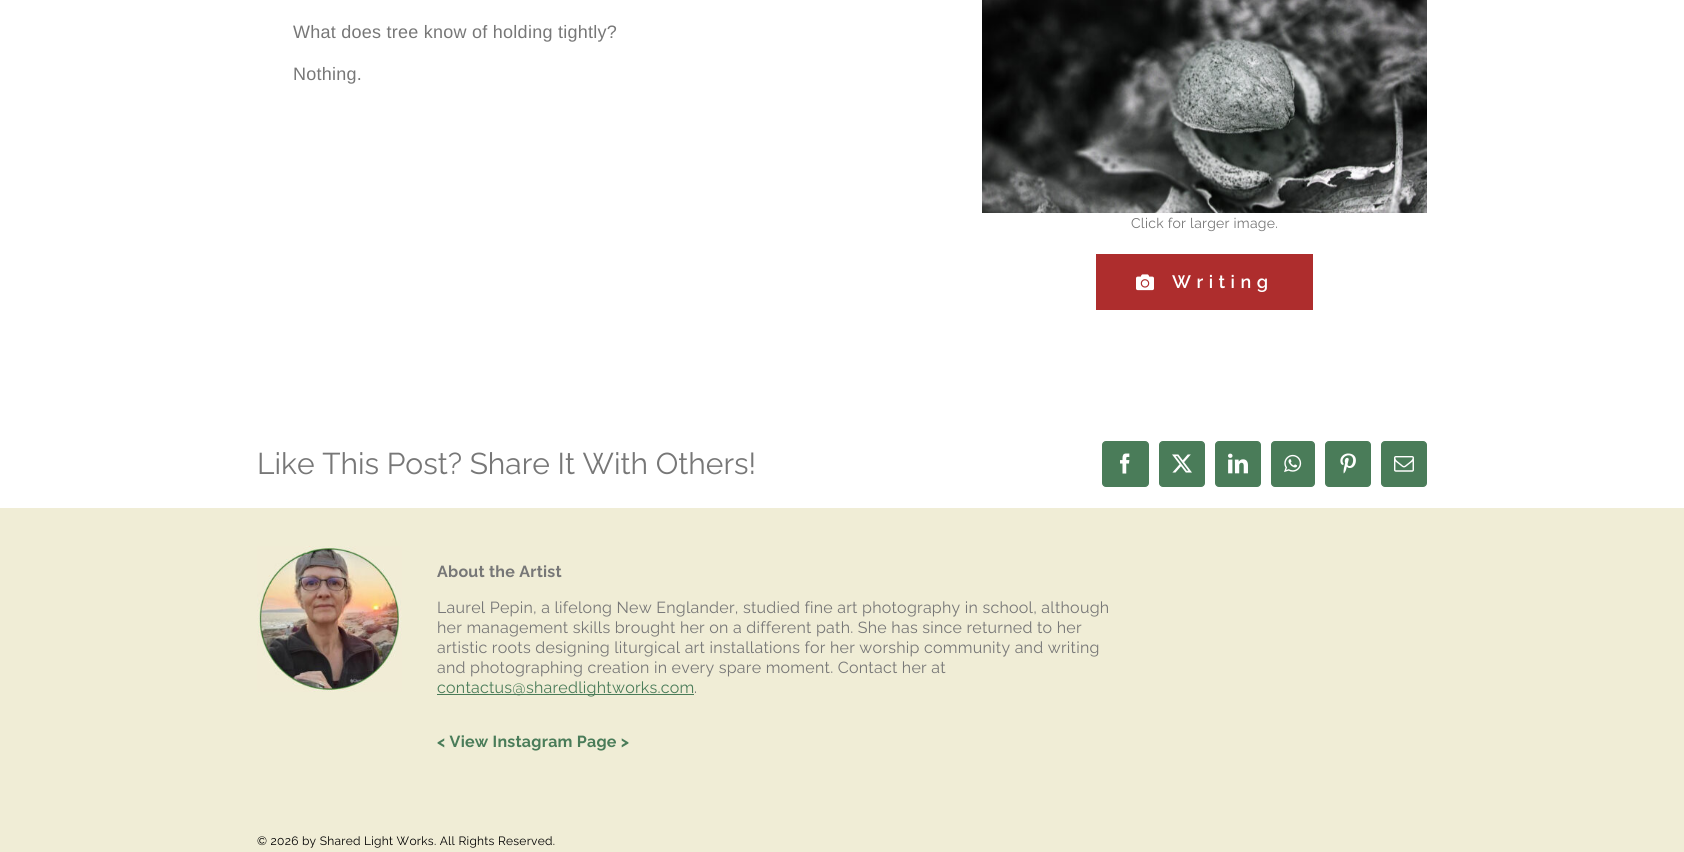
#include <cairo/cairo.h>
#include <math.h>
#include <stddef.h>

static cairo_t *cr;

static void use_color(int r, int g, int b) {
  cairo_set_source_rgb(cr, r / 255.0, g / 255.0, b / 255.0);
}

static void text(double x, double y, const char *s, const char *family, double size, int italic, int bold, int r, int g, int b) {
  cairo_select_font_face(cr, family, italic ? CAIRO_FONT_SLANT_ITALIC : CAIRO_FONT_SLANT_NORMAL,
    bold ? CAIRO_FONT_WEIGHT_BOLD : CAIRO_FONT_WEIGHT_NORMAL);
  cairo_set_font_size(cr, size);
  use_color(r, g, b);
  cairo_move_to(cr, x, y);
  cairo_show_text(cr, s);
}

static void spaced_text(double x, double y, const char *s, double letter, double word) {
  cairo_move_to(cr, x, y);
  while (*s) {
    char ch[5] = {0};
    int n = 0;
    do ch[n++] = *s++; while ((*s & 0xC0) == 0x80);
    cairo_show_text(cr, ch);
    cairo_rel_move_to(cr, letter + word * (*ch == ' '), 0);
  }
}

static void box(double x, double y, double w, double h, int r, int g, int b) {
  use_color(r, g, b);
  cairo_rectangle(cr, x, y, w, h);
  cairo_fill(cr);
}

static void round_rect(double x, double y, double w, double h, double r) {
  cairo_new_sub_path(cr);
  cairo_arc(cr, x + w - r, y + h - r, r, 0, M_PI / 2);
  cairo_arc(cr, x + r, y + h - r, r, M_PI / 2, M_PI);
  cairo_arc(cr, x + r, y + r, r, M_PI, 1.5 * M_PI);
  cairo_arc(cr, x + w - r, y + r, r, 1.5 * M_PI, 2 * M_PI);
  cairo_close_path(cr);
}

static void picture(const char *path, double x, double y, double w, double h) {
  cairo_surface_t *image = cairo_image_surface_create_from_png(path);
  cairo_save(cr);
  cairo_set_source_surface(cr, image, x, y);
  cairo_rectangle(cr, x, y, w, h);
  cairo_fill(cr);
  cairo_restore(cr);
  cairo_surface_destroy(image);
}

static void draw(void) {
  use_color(255, 255, 255);
  cairo_paint(cr);
  picture("img_01.png", 982, 0, 445, 213);
  box(1096, 254, 217, 56, 174, 45, 45);
  picture("img_02.png", 1136, 274, 18, 17);
  use_color(74, 124, 89);
  round_rect(1102.5, 441.5, 46, 45, 3.5);
  cairo_fill_preserve(cr);
  cairo_set_line_width(cr, 1);
  cairo_stroke(cr);
  picture("img_03.png", 1120, 453, 10, 21);
  round_rect(1159.5, 441.5, 45, 45, 3.5);
  cairo_fill_preserve(cr);
  cairo_stroke(cr);
  picture("img_04.png", 1172, 454, 20, 19);
  round_rect(1215.5, 441.5, 45, 45, 3.5);
  cairo_fill_preserve(cr);
  cairo_stroke(cr);
  picture("img_05.png", 1228, 453, 20, 21);
  round_rect(1271.5, 441.5, 43, 45, 3.5);
  cairo_fill_preserve(cr);
  cairo_stroke(cr);
  picture("img_06.png", 1284, 454, 18, 19);
  round_rect(1325.5, 441.5, 45, 45, 3.5);
  cairo_fill_preserve(cr);
  cairo_stroke(cr);
  picture("img_07.png", 1340, 453, 16, 21);
  round_rect(1381.5, 441.5, 45, 45, 3.5);
  cairo_fill_preserve(cr);
  cairo_stroke(cr);
  picture("img_08.png", 1394, 456, 20, 16);
  box(0, 508, 1684, 344, 240, 237, 214);
  picture("img_09.png", 257, 546, 145, 146);
  box(437, 694, 257, 1, 74, 124, 89);
  cairo_select_font_face(cr, "Liberation Sans", CAIRO_FONT_SLANT_NORMAL, CAIRO_FONT_WEIGHT_NORMAL);
  cairo_set_font_size(cr, 18);
  use_color(119, 119, 119);
  spaced_text(293, 38, "What does tree know of holding tightly?", 0.25, 0);
  spaced_text(293, 80, "Nothing.", 0.25, 0);
  cairo_select_font_face(cr, "Raleway", CAIRO_FONT_SLANT_NORMAL, CAIRO_FONT_WEIGHT_NORMAL);
  cairo_set_font_size(cr, 14);
  spaced_text(1131, 228, "Click for larger image.", 0.25, 0);
  cairo_select_font_face(cr, "Raleway SemiBold", CAIRO_FONT_SLANT_NORMAL, CAIRO_FONT_WEIGHT_NORMAL);
  cairo_set_font_size(cr, 18);
  use_color(255, 255, 255);
  spaced_text(1172, 288, "Writing", 5.5, 0);
  text(257, 474, "Like This Post? Share It With Others!", "Raleway", 30, 0, 0, 119, 119, 119);
  cairo_select_font_face(cr, "Raleway", CAIRO_FONT_SLANT_NORMAL, CAIRO_FONT_WEIGHT_BOLD);
  cairo_set_font_size(cr, 16);
  spaced_text(437, 577, "About the Artist", 0.25, 0);
  cairo_select_font_face(cr, "Raleway", CAIRO_FONT_SLANT_NORMAL, CAIRO_FONT_WEIGHT_NORMAL);
  spaced_text(437, 613, "Laurel Pepin, a lifelong New Englander, studied fine art photography in school, although", 0.25, 0);
  spaced_text(437, 633, "her management skills brought her on a different path. She has since returned to her", 0.25, 0);
  spaced_text(437, 653, "artistic roots designing liturgical art installations for her worship community and writing", 0.25, 0);
  spaced_text(437, 673, "and photographing creation in every spare moment. Contact her at", 0.25, 0);
  use_color(74, 124, 89);
  spaced_text(437, 693, "contactus@sharedlightworks.com", 0.25, 0);
  use_color(119, 119, 119);
  spaced_text(694, 693, ".", 0.25, 0);
  cairo_select_font_face(cr, "Raleway", CAIRO_FONT_SLANT_NORMAL, CAIRO_FONT_WEIGHT_BOLD);
  use_color(74, 124, 89);
  spaced_text(437, 747, "< View Instagram Page >", 0.25, 0);
  cairo_select_font_face(cr, "Raleway", CAIRO_FONT_SLANT_NORMAL, CAIRO_FONT_WEIGHT_NORMAL);
  cairo_set_font_size(cr, 12);
  use_color(0, 0, 0);
  spaced_text(257, 845, "© 2026 by Shared Light Works. All Rights Reserved.", 0.25, 0);
}

int main(void) {
  cairo_surface_t *surface = cairo_image_surface_create(CAIRO_FORMAT_RGB24, 1684, 852);
  cr = cairo_create(surface);
  cairo_font_options_t *options = cairo_font_options_create();
  cairo_font_options_set_hint_metrics(options, CAIRO_HINT_METRICS_OFF);
  cairo_font_options_set_hint_style(options, CAIRO_HINT_STYLE_NONE);
  cairo_set_font_options(cr, options);
  cairo_set_miter_limit(cr, 4);
  draw();
  cairo_surface_write_to_png(surface, "out.png");
  cairo_font_options_destroy(options);
  cairo_destroy(cr);
  cairo_surface_destroy(surface);
  return 0;
}
